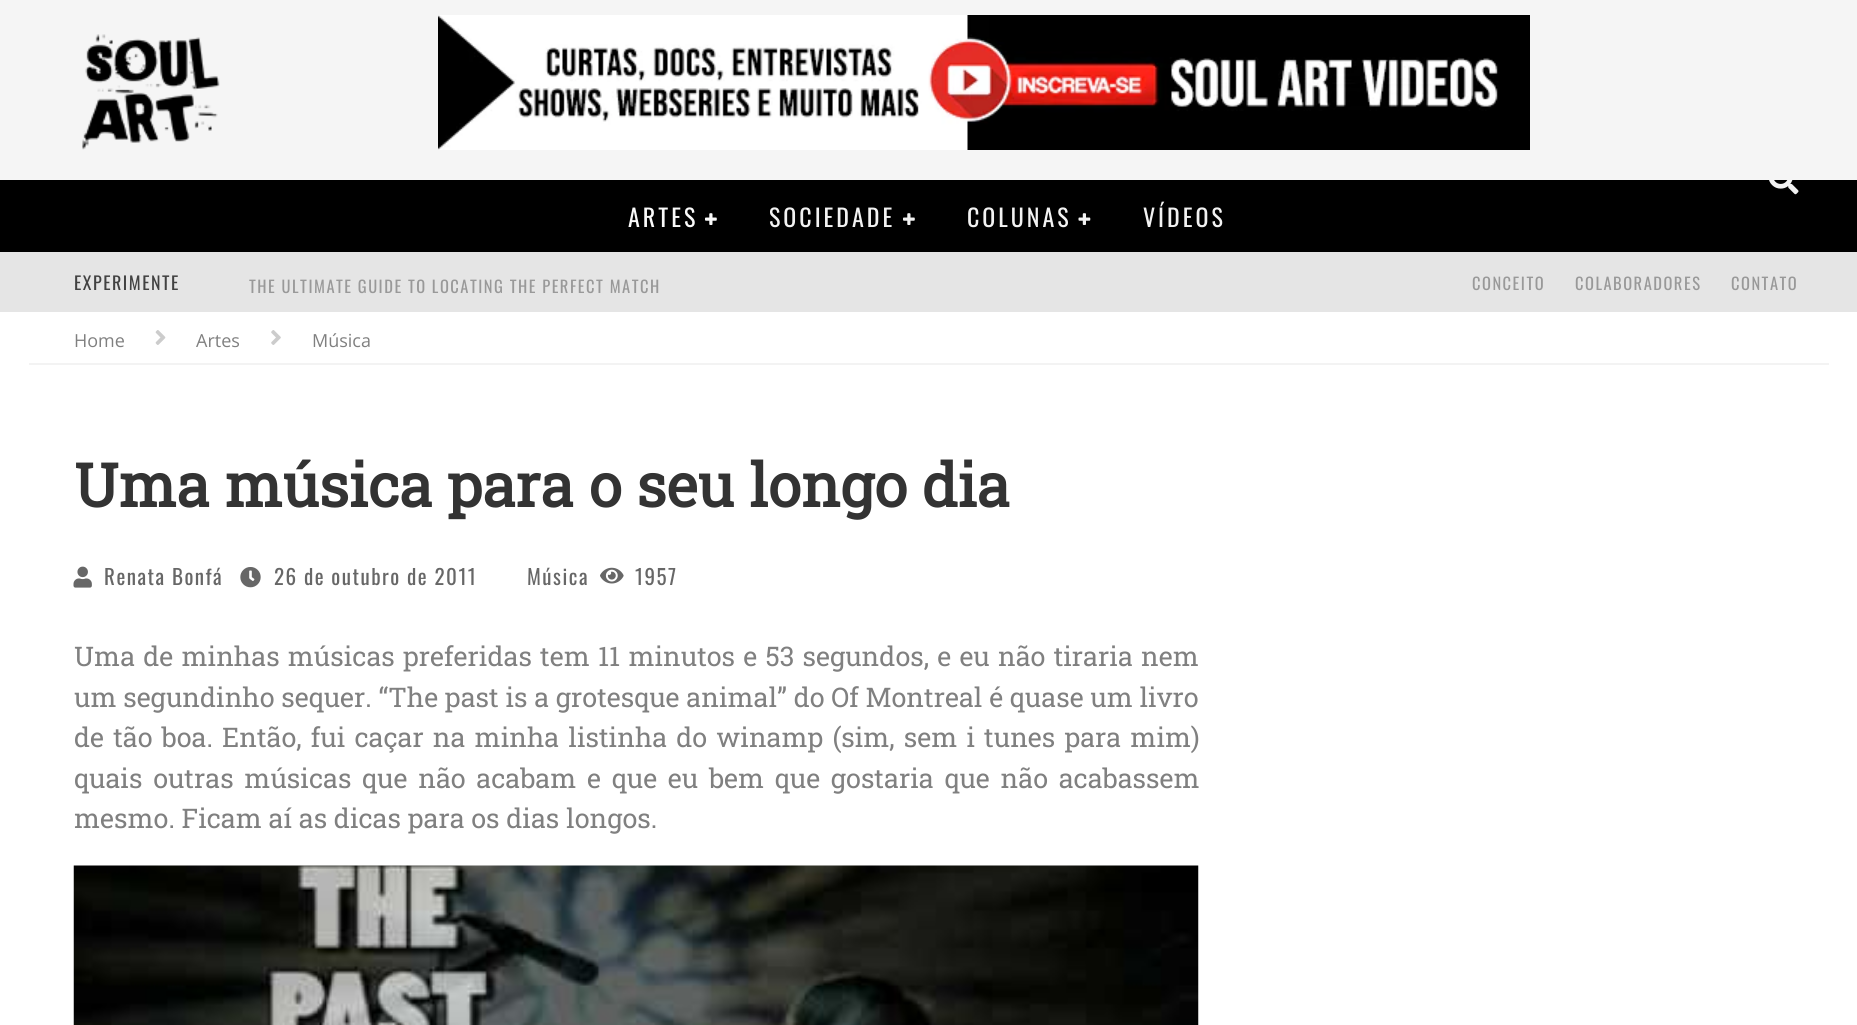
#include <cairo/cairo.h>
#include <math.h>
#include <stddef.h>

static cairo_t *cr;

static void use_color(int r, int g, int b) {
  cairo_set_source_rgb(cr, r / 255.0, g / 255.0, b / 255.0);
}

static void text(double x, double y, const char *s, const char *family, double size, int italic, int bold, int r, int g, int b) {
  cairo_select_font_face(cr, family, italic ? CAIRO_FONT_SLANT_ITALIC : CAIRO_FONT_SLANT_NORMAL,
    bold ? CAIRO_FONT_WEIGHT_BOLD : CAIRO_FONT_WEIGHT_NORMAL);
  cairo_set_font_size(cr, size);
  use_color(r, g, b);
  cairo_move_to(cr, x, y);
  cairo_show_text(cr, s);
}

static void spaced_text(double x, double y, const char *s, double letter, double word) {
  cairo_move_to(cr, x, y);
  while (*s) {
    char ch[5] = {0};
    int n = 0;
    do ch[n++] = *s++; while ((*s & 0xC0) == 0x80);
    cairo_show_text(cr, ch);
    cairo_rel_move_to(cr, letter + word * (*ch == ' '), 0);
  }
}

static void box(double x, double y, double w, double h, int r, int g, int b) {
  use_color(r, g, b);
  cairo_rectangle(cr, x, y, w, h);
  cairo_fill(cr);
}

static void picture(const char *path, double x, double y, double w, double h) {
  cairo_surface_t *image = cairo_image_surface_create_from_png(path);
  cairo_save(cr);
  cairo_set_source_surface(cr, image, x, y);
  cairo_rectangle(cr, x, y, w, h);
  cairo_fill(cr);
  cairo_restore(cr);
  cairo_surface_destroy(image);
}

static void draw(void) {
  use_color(255, 255, 255);
  cairo_paint(cr);
  box(0, 0, 1857, 180, 245, 245, 245);
  picture("img_01.png", 82, 34, 138, 116);
  picture("img_02.png", 438, 15, 1092, 135);
  box(0, 180, 1857, 72, 0, 0, 0);
  picture("img_03.png", 1769, 180, 30, 15);
  picture("img_04.png", 705, 213, 12, 12);
  picture("img_05.png", 903, 213, 12, 12);
  picture("img_06.png", 1078, 213, 13, 12);
  box(0, 252, 1857, 60, 229, 229, 229);
  box(29, 363, 1800, 2, 243, 243, 243);
  picture("img_07.png", 155, 330, 11, 15);
  picture("img_08.png", 271, 330, 10, 15);
  picture("img_09.png", 73, 566, 19, 22);
  picture("img_10.png", 240, 567, 21, 21);
  picture("img_11.png", 600, 567, 24, 17);
  picture("img_12.png", 73, 865, 1126, 160);
  cairo_select_font_face(cr, "Oswald", CAIRO_FONT_SLANT_NORMAL, CAIRO_FONT_WEIGHT_NORMAL);
  cairo_set_font_size(cr, 24);
  use_color(250, 250, 250);
  spaced_text(628, 227, "ARTES", 3, 0);
  use_color(242, 242, 242);
  spaced_text(769, 227, "SOCIEDADE", 3, 0);
  spaced_text(967, 227, "COLUNAS", 3, 0);
  spaced_text(1143, 227, "VÍDEOS", 3, 0);
  cairo_set_font_size(cr, 18);
  use_color(66, 66, 66);
  spaced_text(74, 290, "EXPERIMENTE", 1.5, 0);
  cairo_set_font_size(cr, 16.5);
  use_color(153, 153, 153);
  spaced_text(249, 293, "THE ULTIMATE GUIDE TO LOCATING THE PERFECT MATCH", 1.5, 0);
  spaced_text(1472, 290, "CONCEITO", 1.5, 0);
  spaced_text(1575, 290, "COLABORADORES", 1.5, 0);
  spaced_text(1731, 290, "CONTATO", 1.5, 0);
  text(74, 347, "Home", "Open Sans", 18, 0, 0, 128, 128, 128);
  text(196, 347, "Artes", "Open Sans", 18, 0, 0, 128, 128, 128);
  text(312, 347, "Música", "Open Sans", 18, 0, 0, 128, 128, 128);
  text(74, 507, "Uma música para o seu longo dia", "Roboto Slab", 60, 0, 1, 51, 51, 51);
  cairo_select_font_face(cr, "Oswald", CAIRO_FONT_SLANT_NORMAL, CAIRO_FONT_WEIGHT_NORMAL);
  cairo_set_font_size(cr, 21);
  use_color(103, 103, 103);
  spaced_text(104, 585, "Renata Bonfá", 1.5, 0);
  spaced_text(274, 585, "26 de outubro de 2011", 1.5, 0);
  spaced_text(527, 585, "Música", 1.5, 0);
  spaced_text(635, 585, "1957", 1.5, 0);
  cairo_select_font_face(cr, "Roboto Slab", CAIRO_FONT_SLANT_NORMAL, CAIRO_FONT_WEIGHT_NORMAL);
  cairo_set_font_size(cr, 27);
  use_color(128, 128, 128);
  spaced_text(74, 666, "Uma de minhas músicas preferidas tem 11 minutos e 53 segundos, e eu não tiraria nem", 0, 1.5);
  text(74, 707, "um segundinho sequer. “The past is a grotesque animal” do Of Montreal é quase um livro", "Roboto Slab", 27, 0, 0, 128, 128, 128);
  spaced_text(74, 747, "de tão boa. Então, fui caçar na minha listinha do winamp (sim, sem i tunes para mim)", 0, 2.4);
  spaced_text(74, 788, "quais outras músicas que não acabam e que eu bem que gostaria que não acabassem", 0, 4);
  text(74, 828, "mesmo. Ficam aí as dicas para os dias longos.", "Roboto Slab", 27, 0, 0, 128, 128, 128);
}

int main(void) {
  cairo_surface_t *surface = cairo_image_surface_create(CAIRO_FORMAT_RGB24, 1857, 1025);
  cr = cairo_create(surface);
  cairo_font_options_t *options = cairo_font_options_create();
  cairo_font_options_set_hint_metrics(options, CAIRO_HINT_METRICS_OFF);
  cairo_font_options_set_hint_style(options, CAIRO_HINT_STYLE_NONE);
  cairo_set_font_options(cr, options);
  cairo_set_miter_limit(cr, 4);
  draw();
  cairo_surface_write_to_png(surface, "out.png");
  cairo_font_options_destroy(options);
  cairo_destroy(cr);
  cairo_surface_destroy(surface);
  return 0;
}
